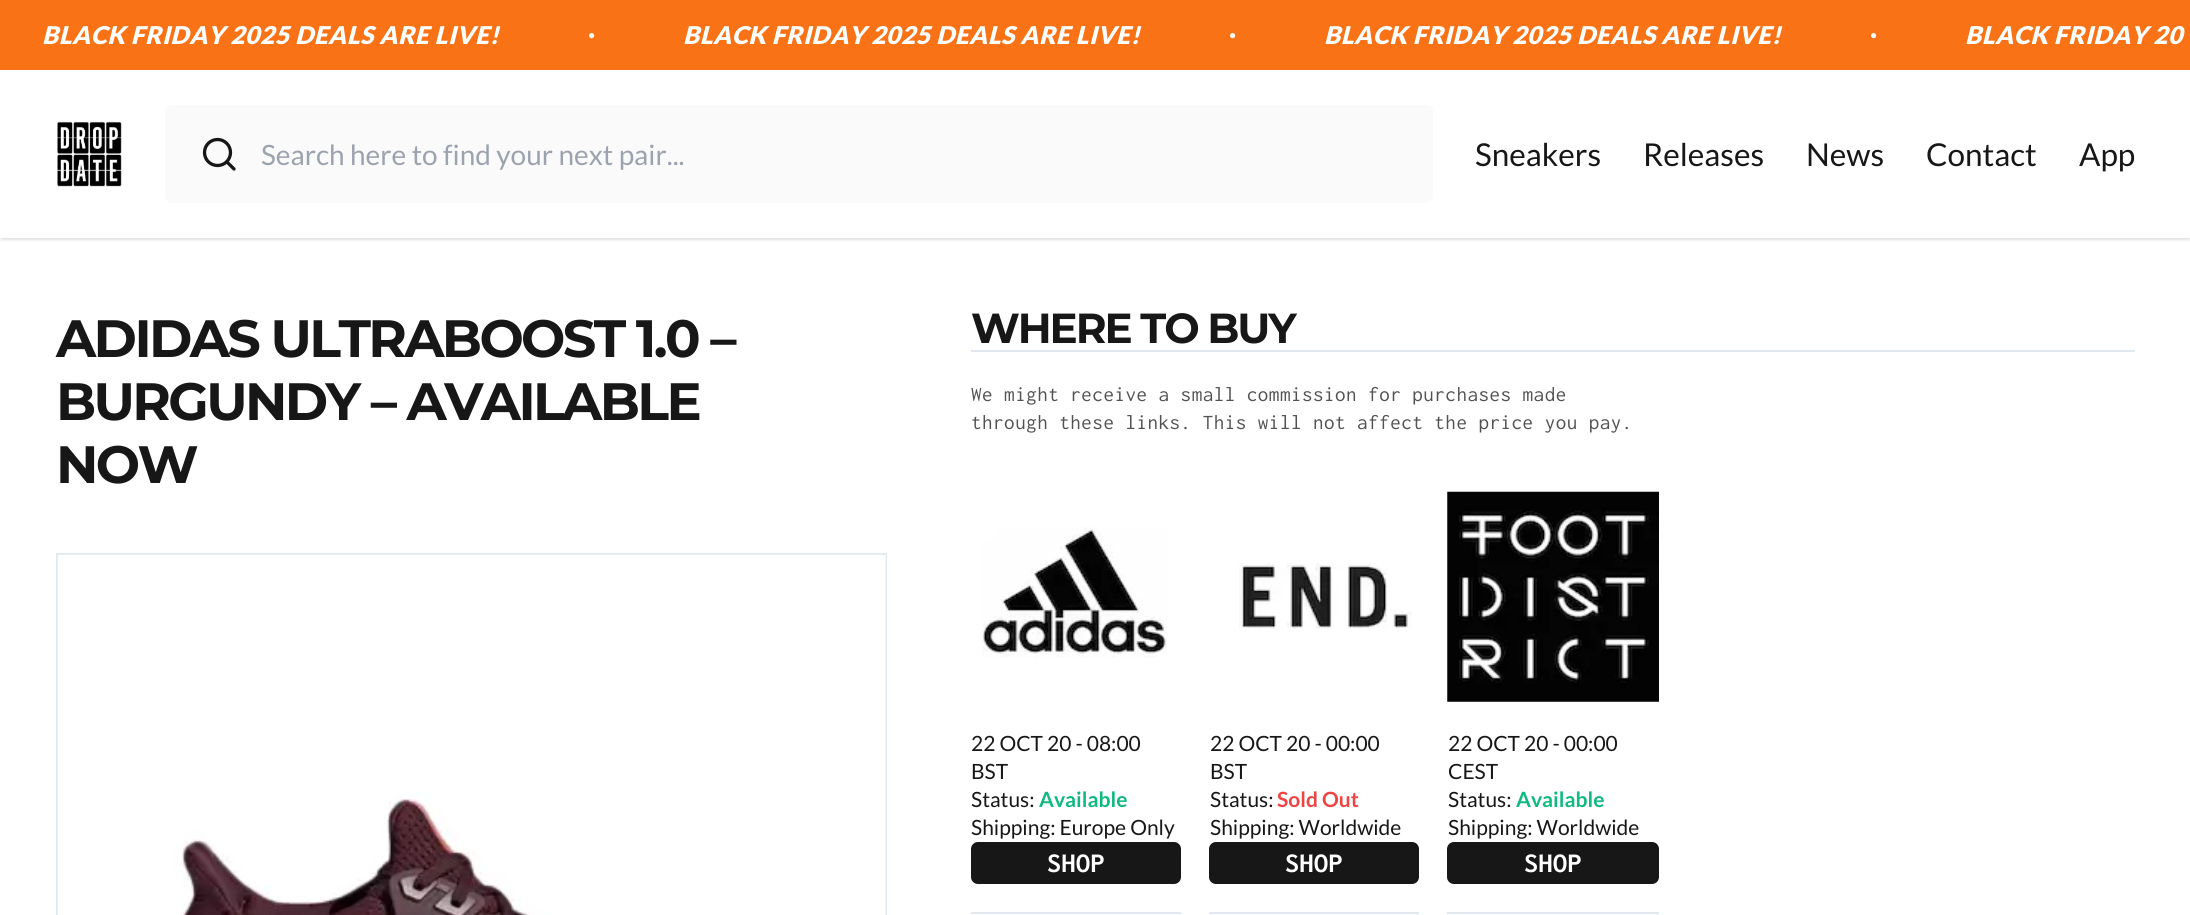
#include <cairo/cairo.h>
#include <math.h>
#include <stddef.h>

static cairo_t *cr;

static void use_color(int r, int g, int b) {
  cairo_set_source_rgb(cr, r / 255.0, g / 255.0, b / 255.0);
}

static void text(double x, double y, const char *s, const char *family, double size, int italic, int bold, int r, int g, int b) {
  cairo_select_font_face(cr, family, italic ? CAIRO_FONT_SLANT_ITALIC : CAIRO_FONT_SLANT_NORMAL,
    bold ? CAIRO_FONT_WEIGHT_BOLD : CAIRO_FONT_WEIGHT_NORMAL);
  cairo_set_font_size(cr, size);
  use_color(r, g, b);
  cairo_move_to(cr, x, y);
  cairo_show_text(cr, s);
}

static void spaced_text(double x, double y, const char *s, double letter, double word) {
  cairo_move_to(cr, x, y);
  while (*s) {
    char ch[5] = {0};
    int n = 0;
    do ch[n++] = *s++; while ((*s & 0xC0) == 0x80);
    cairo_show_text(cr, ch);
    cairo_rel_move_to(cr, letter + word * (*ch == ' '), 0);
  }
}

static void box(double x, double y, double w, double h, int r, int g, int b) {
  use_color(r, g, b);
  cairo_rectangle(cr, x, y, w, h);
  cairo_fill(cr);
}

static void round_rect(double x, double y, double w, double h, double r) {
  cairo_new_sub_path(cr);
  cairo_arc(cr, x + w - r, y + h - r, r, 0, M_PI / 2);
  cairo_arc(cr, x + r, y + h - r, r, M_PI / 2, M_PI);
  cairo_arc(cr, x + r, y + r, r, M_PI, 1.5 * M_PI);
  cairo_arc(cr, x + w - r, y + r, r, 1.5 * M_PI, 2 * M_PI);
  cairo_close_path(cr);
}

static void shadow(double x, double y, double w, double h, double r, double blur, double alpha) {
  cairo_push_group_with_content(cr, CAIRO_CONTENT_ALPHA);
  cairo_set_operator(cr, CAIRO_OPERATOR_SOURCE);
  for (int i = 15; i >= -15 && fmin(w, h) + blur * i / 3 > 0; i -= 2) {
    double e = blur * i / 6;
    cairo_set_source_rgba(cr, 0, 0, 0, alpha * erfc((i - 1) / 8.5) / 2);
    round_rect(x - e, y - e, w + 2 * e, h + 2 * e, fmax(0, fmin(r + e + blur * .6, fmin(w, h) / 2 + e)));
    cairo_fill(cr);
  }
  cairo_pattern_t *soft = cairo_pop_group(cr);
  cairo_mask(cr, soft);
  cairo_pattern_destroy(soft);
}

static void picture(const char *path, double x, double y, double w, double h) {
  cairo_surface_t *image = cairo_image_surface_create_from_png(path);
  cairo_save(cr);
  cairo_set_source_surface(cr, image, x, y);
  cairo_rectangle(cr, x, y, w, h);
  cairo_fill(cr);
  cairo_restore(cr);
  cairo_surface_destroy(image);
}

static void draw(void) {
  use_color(255, 255, 255);
  cairo_paint(cr);
  cairo_save(cr);
  cairo_rectangle(cr, 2, 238, 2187, 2);
  cairo_clip(cr);
  use_color(0, 0, 0);
  shadow(2, 74, 2187, 164, 0, 2, 0.1);
  cairo_restore(cr);
  cairo_save(cr);
  cairo_rectangle(cr, 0, 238, 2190, 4);
  cairo_clip(cr);
  use_color(0, 0, 0);
  shadow(0, 72, 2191, 168, 0, 2.5, 0.1);
  cairo_restore(cr);
  box(0, 0, 2190, 70, 249, 115, 22);
  picture("img_01.png", 57, 121, 65, 66);
  use_color(250, 250, 250);
  round_rect(165, 105, 1268, 98, 7);
  cairo_fill(cr);
  cairo_arc(cr, 217.5, 152.5, 13, 0, 2 * M_PI);
  use_color(23, 23, 23);
  cairo_set_line_width(cr, 3.3);
  cairo_stroke(cr);
  cairo_new_path(cr);
  cairo_move_to(cr, 234, 169);
  cairo_line_to(cr, 227, 162);
  cairo_set_line_cap(cr, CAIRO_LINE_CAP_ROUND);
  cairo_set_line_join(cr, CAIRO_LINE_JOIN_ROUND);
  cairo_stroke(cr);
  cairo_rectangle(cr, 57, 554, 829, 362);
  use_color(226, 232, 240);
  cairo_set_line_width(cr, 2);
  cairo_set_line_cap(cr, CAIRO_LINE_CAP_BUTT);
  cairo_set_line_join(cr, CAIRO_LINE_JOIN_MITER);
  cairo_stroke(cr);
  picture("img_02.png", 57, 554, 829, 361);
  box(971, 350, 1164, 2, 226, 232, 240);
  box(971, 912, 210, 2, 226, 232, 240);
  picture("img_03.png", 982, 527, 185, 131);
  use_color(23, 23, 23);
  round_rect(971, 842, 210, 42, 7);
  cairo_fill(cr);
  box(1209, 912, 210, 2, 226, 232, 240);
  picture("img_04.png", 1239, 563, 173, 66);
  use_color(23, 23, 23);
  round_rect(1209, 842, 210, 42, 7);
  cairo_fill(cr);
  box(1447, 912, 212, 2, 226, 232, 240);
  picture("img_05.png", 1447, 491, 212, 211);
  use_color(23, 23, 23);
  round_rect(1447, 842, 212, 42, 7);
  cairo_fill(cr);
  cairo_select_font_face(cr, "Lato Black", CAIRO_FONT_SLANT_ITALIC, CAIRO_FONT_WEIGHT_NORMAL);
  cairo_set_font_size(cr, 24.5);
  use_color(255, 255, 255);
  spaced_text(42, 44, "BLACK FRIDAY 2025 DEALS ARE LIVE!", 0.6, 0);
  text(588, 39, "●", "Liberation Serif", 12, 1, 1, 255, 255, 255);
  cairo_select_font_face(cr, "Lato Black", CAIRO_FONT_SLANT_ITALIC, CAIRO_FONT_WEIGHT_NORMAL);
  cairo_set_font_size(cr, 24.5);
  spaced_text(683, 44, "BLACK FRIDAY 2025 DEALS ARE LIVE!", 0.6, 0);
  text(1229, 39, "●", "Liberation Serif", 12, 1, 1, 255, 255, 255);
  cairo_select_font_face(cr, "Lato Black", CAIRO_FONT_SLANT_ITALIC, CAIRO_FONT_WEIGHT_NORMAL);
  cairo_set_font_size(cr, 24.5);
  spaced_text(1324, 44, "BLACK FRIDAY 2025 DEALS ARE LIVE!", 0.6, 0);
  text(1870, 39, "●", "Liberation Serif", 12, 1, 1, 255, 255, 255);
  cairo_select_font_face(cr, "Lato Black", CAIRO_FONT_SLANT_ITALIC, CAIRO_FONT_WEIGHT_NORMAL);
  cairo_set_font_size(cr, 24.5);
  spaced_text(1965, 44, "BLACK FRIDAY 20", 0.6, 0);
  text(261, 165, "Search here to find your next pair...", "Lato", 28, 0, 0, 156, 163, 175);
  text(1475, 166, "Sneakers", "Lato", 31.5, 0, 0, 23, 23, 23);
  text(1643, 166, "Releases", "Lato", 31.5, 0, 0, 23, 23, 23);
  text(1806, 166, "News", "Lato", 31.5, 0, 0, 23, 23, 23);
  text(1926, 166, "Contact", "Lato", 31.5, 0, 0, 23, 23, 23);
  text(2079, 166, "App", "Lato", 31.5, 0, 0, 23, 23, 23);
  cairo_select_font_face(cr, "Montserrat", CAIRO_FONT_SLANT_NORMAL, CAIRO_FONT_WEIGHT_BOLD);
  cairo_set_font_size(cr, 52.5);
  spaced_text(56, 357, "ADIDAS ULTRABOOST 1.0 –", -2.6, 0);
  spaced_text(56, 420, "BURGUNDY – AVAILABLE", -2.6, 0);
  spaced_text(56, 483, "NOW", -2.6, 0);
  cairo_set_font_size(cr, 42);
  spaced_text(971, 343, "WHERE TO BUY", -2.1, 0);
  cairo_select_font_face(cr, "Inconsolata", CAIRO_FONT_SLANT_NORMAL, CAIRO_FONT_WEIGHT_NORMAL);
  cairo_set_font_size(cr, 21);
  use_color(82, 82, 82);
  spaced_text(971, 401, "We might receive a small commission for purchases made", 0.53, 0);
  spaced_text(971, 429, "through these links. This will not affect the price you pay.", 0.53, 0);
  text(971, 751, "22 OCT 20 - 08:00", "Lato", 21, 0, 0, 23, 23, 23);
  text(971, 779, "BST", "Lato", 21, 0, 0, 23, 23, 23);
  text(971, 807, "Status:", "Lato", 21, 0, 0, 23, 23, 23);
  text(1039, 807, "Available", "Lato", 21, 0, 1, 16, 185, 129);
  text(971, 835, "Shipping: Europe Only", "Lato", 21, 0, 0, 23, 23, 23);
  cairo_select_font_face(cr, "Inconsolata", CAIRO_FONT_SLANT_NORMAL, CAIRO_FONT_WEIGHT_BOLD);
  cairo_set_font_size(cr, 28);
  use_color(255, 255, 255);
  spaced_text(1047, 872, "SHOP", 0.5, 0);
  text(1210, 751, "22 OCT 20 - 00:00", "Lato", 21, 0, 0, 23, 23, 23);
  text(1210, 779, "BST", "Lato", 21, 0, 0, 23, 23, 23);
  text(1210, 807, "Status:", "Lato", 21, 0, 0, 23, 23, 23);
  text(1277, 807, "Sold Out", "Lato", 21, 0, 1, 239, 68, 68);
  text(1210, 835, "Shipping: Worldwide", "Lato", 21, 0, 0, 23, 23, 23);
  cairo_select_font_face(cr, "Inconsolata", CAIRO_FONT_SLANT_NORMAL, CAIRO_FONT_WEIGHT_BOLD);
  cairo_set_font_size(cr, 28);
  use_color(255, 255, 255);
  spaced_text(1285, 872, "SHOP", 0.5, 0);
  text(1448, 751, "22 OCT 20 - 00:00", "Lato", 21, 0, 0, 23, 23, 23);
  text(1448, 779, "CEST", "Lato", 21, 0, 0, 23, 23, 23);
  text(1448, 807, "Status:", "Lato", 21, 0, 0, 23, 23, 23);
  text(1516, 807, "Available", "Lato", 21, 0, 1, 16, 185, 129);
  text(1448, 835, "Shipping: Worldwide", "Lato", 21, 0, 0, 23, 23, 23);
  cairo_select_font_face(cr, "Inconsolata", CAIRO_FONT_SLANT_NORMAL, CAIRO_FONT_WEIGHT_BOLD);
  cairo_set_font_size(cr, 28);
  use_color(255, 255, 255);
  spaced_text(1524, 872, "SHOP", 0.5, 0);
}

int main(void) {
  cairo_surface_t *surface = cairo_image_surface_create(CAIRO_FORMAT_RGB24, 2190, 915);
  cr = cairo_create(surface);
  cairo_font_options_t *options = cairo_font_options_create();
  cairo_font_options_set_hint_metrics(options, CAIRO_HINT_METRICS_OFF);
  cairo_font_options_set_hint_style(options, CAIRO_HINT_STYLE_NONE);
  cairo_set_font_options(cr, options);
  cairo_set_miter_limit(cr, 4);
  draw();
  cairo_surface_write_to_png(surface, "out.png");
  cairo_font_options_destroy(options);
  cairo_destroy(cr);
  cairo_surface_destroy(surface);
  return 0;
}
